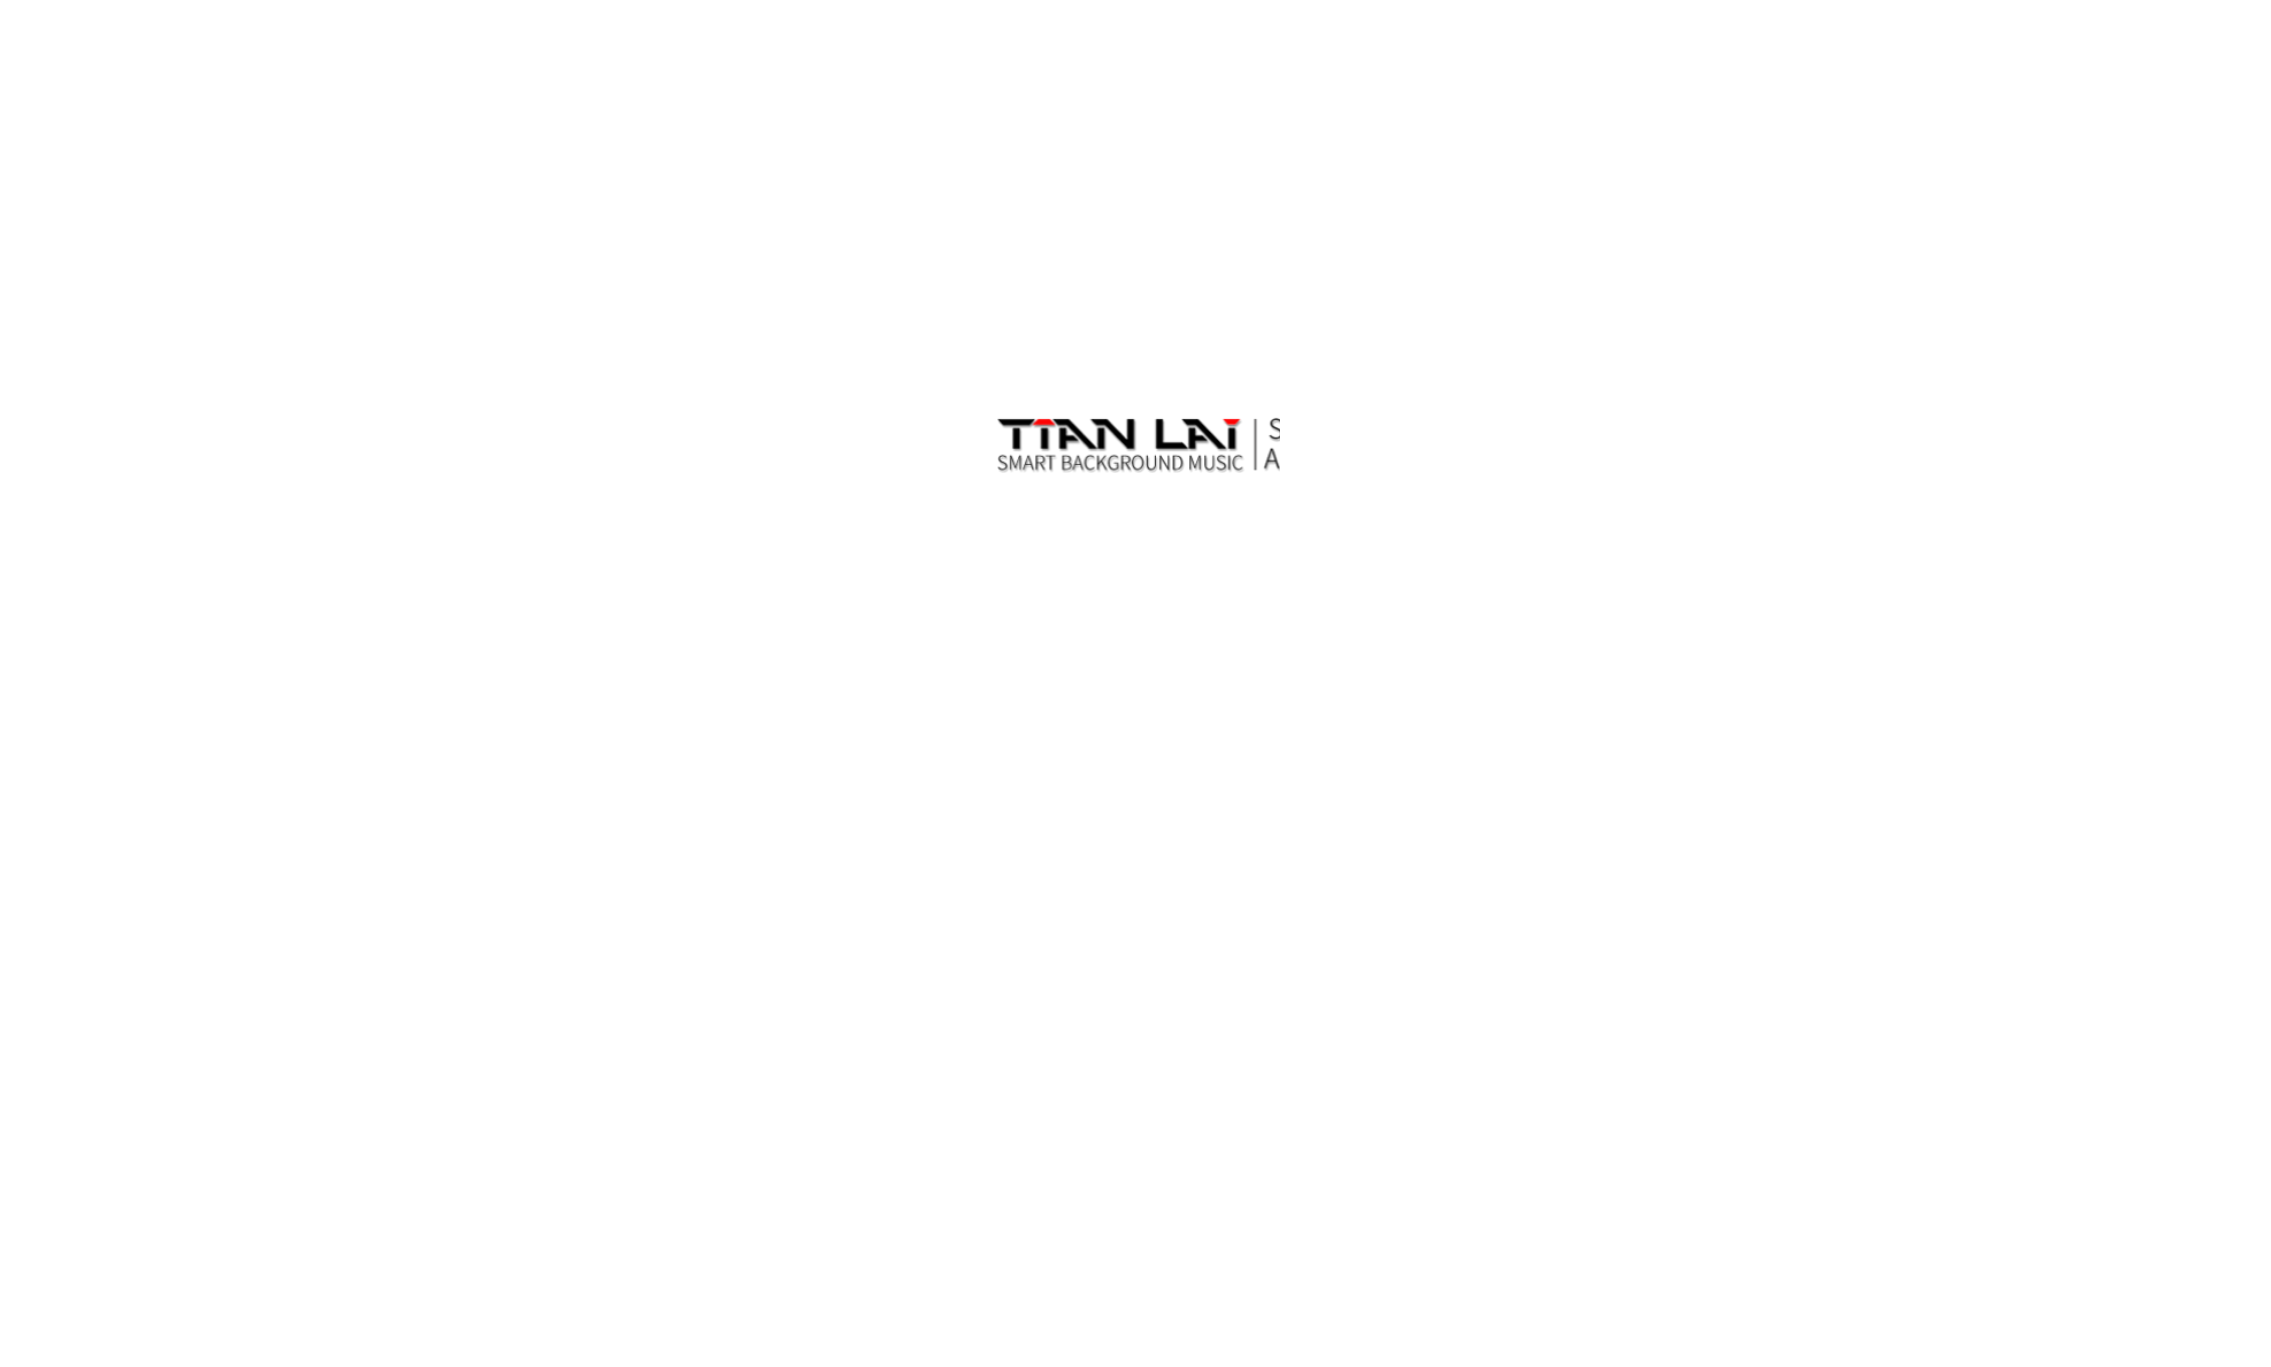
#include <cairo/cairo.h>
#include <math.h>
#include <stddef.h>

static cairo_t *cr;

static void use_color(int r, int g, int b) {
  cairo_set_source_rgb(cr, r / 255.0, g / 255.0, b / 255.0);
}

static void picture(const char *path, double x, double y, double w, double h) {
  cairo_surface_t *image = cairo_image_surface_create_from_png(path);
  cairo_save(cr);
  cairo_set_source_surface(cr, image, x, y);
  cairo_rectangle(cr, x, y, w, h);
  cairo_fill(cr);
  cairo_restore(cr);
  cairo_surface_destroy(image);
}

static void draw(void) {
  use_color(255, 255, 255);
  cairo_paint(cr);
  picture("img_01.png", 997, 417, 283, 56);
}

int main(void) {
  cairo_surface_t *surface = cairo_image_surface_create(CAIRO_FORMAT_RGB24, 2271, 1367);
  cr = cairo_create(surface);
  cairo_font_options_t *options = cairo_font_options_create();
  cairo_font_options_set_hint_metrics(options, CAIRO_HINT_METRICS_OFF);
  cairo_font_options_set_hint_style(options, CAIRO_HINT_STYLE_NONE);
  cairo_set_font_options(cr, options);
  cairo_set_miter_limit(cr, 4);
  draw();
  cairo_surface_write_to_png(surface, "out.png");
  cairo_font_options_destroy(options);
  cairo_destroy(cr);
  cairo_surface_destroy(surface);
  return 0;
}
